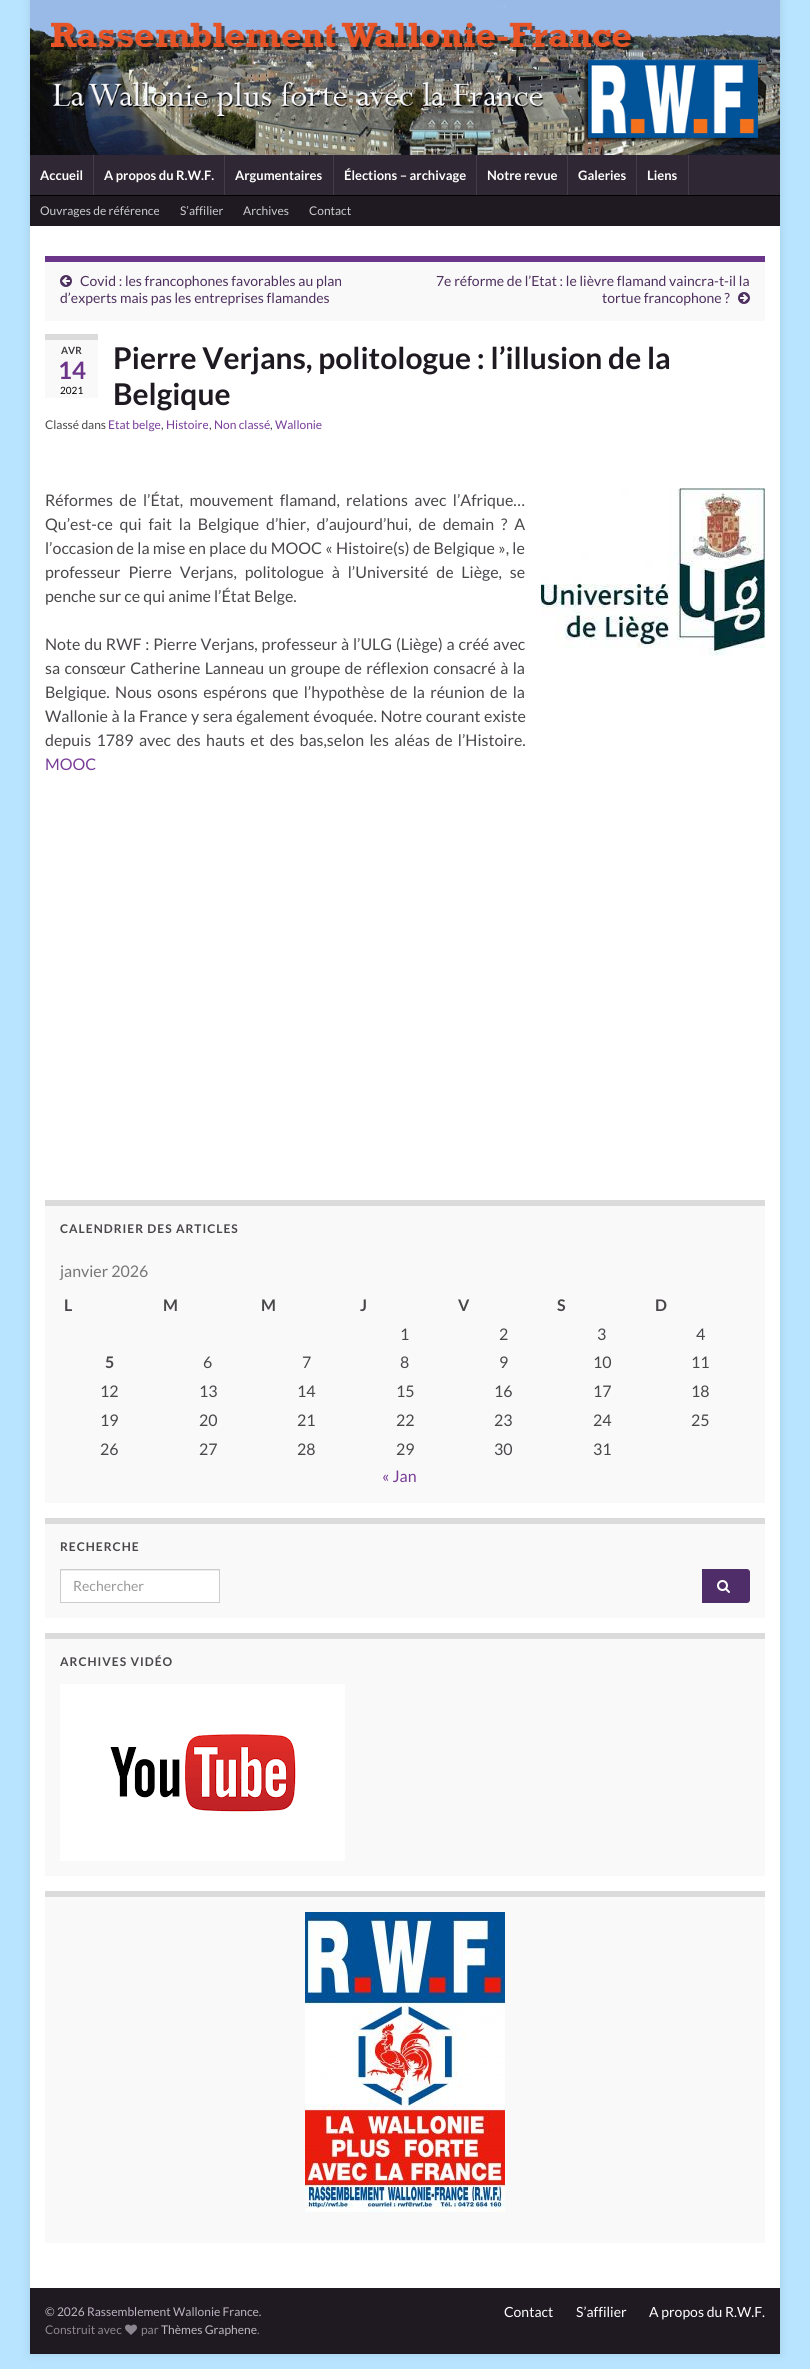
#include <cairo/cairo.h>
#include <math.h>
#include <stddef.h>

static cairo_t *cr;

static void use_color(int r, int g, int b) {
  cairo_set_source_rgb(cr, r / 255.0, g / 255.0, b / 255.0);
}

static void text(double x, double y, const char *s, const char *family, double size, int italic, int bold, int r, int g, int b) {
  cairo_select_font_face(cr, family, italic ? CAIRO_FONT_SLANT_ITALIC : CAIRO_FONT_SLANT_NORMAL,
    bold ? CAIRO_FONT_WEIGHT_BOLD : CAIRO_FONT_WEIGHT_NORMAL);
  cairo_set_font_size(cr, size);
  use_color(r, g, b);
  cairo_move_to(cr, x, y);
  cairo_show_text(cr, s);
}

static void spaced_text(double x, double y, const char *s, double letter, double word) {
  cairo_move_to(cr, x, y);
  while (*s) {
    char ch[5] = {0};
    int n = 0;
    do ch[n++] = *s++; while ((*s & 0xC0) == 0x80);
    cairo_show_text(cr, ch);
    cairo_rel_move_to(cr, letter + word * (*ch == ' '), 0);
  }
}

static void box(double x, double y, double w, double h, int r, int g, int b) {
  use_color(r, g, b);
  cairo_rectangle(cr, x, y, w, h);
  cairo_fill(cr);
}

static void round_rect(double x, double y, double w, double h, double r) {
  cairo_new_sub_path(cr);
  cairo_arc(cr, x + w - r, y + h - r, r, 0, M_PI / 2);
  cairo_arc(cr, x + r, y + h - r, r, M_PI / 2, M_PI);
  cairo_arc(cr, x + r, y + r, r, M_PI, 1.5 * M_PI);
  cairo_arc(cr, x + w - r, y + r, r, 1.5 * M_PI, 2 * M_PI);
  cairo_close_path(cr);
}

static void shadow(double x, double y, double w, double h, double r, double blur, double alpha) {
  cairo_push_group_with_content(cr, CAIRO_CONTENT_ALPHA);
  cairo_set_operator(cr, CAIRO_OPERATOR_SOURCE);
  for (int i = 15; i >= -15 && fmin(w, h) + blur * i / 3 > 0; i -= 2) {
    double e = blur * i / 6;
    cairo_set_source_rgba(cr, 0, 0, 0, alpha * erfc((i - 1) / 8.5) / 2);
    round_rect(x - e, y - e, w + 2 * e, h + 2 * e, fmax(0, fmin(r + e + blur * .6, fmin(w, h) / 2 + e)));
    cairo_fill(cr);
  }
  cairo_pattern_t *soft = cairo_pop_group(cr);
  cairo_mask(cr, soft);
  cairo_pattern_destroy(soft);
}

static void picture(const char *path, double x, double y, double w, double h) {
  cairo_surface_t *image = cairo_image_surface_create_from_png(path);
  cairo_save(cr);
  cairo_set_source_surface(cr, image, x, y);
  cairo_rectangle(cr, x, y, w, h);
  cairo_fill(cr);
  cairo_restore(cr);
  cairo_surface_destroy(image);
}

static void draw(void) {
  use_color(184, 228, 255);
  cairo_paint(cr);
  use_color(0, 0, 0);
  shadow(30, 0, 750, 2354, 0, 5, 0.1);
  picture("img_01.png", 30, 0, 750, 155);
  box(30, 155, 750, 40, 47, 39, 51);
  box(93, 155, 1, 40, 68, 61, 71);
  box(224, 155, 1, 40, 68, 61, 71);
  box(333, 155, 1, 40, 68, 61, 71);
  box(476, 155, 1, 40, 68, 61, 71);
  box(567, 155, 1, 40, 68, 61, 71);
  box(636, 155, 1, 40, 68, 61, 71);
  box(688, 155, 1, 40, 68, 61, 71);
  box(30, 196, 750, 30, 31, 26, 34);
  box(30, 195, 750, 1, 0, 0, 0);
  box(30, 226, 750, 2062, 255, 255, 255);
  box(45, 262, 720, 59, 249, 249, 249);
  box(45, 256, 720, 6, 107, 53, 137);
  picture("img_02.png", 60, 275, 12, 12);
  picture("img_03.png", 738, 292, 12, 12);
  box(45, 340, 53, 58, 249, 249, 249);
  box(45, 334, 53, 6, 219, 219, 219);
  picture("img_04.png", 541, 488, 224, 169);
  box(45, 1206, 720, 297, 249, 249, 249);
  box(45, 1200, 720, 6, 219, 219, 219);
  box(45, 1524, 720, 94, 249, 249, 249);
  box(45, 1518, 720, 6, 219, 219, 219);
  box(61, 1571, 158, 31, 255, 255, 255);
  box(61, 1570, 158, 1, 236, 236, 236);
  cairo_rectangle(cr, 60.5, 1569.5, 159, 33);
  use_color(204, 204, 204);
  cairo_set_line_width(cr, 1);
  cairo_stroke(cr);
  use_color(79, 45, 105);
  cairo_new_path(cr);
  cairo_move_to(cr, 702, 1569);
  cairo_line_to(cr, 747, 1569);
  cairo_curve_to(cr, 748.5, 1569, 750, 1570.5, 750, 1572);
  cairo_line_to(cr, 750, 1600);
  cairo_curve_to(cr, 750, 1601.5, 748.5, 1603, 747, 1603);
  cairo_line_to(cr, 702, 1603);
  cairo_close_path(cr);
  cairo_fill(cr);
  picture("img_05.png", 717, 1580, 13, 13);
  box(45, 1639, 720, 237, 249, 249, 249);
  box(45, 1633, 720, 6, 219, 219, 219);
  picture("img_06.png", 60, 1684, 285, 177);
  box(45, 1897, 720, 346, 249, 249, 249);
  box(45, 1891, 720, 6, 219, 219, 219);
  picture("img_07.png", 305, 1912, 200, 300);
  box(30, 2288, 750, 66, 31, 26, 34);
  picture("img_08.png", 125, 2324, 12, 11);
  text(40, 180, "Accueil", "Lato", 13, 0, 1, 255, 255, 255);
  text(104, 180, "A propos du R.W.F.", "Lato", 13, 0, 1, 255, 255, 255);
  text(235, 180, "Argumentaires", "Lato", 13, 0, 1, 255, 255, 255);
  text(344, 180, "Élections – archivage", "Lato", 13, 0, 1, 255, 255, 255);
  text(487, 180, "Notre revue", "Lato", 13, 0, 1, 255, 255, 255);
  text(578, 180, "Galeries", "Lato", 13, 0, 1, 255, 255, 255);
  text(647, 180, "Liens", "Lato", 13, 0, 1, 255, 255, 255);
  text(40, 215, "Ouvrages de référence", "Lato", 12, 0, 0, 204, 204, 204);
  text(180, 215, "S’affilier", "Lato", 12, 0, 0, 204, 204, 204);
  text(243, 215, "Archives", "Lato", 12, 0, 0, 204, 204, 204);
  text(309, 215, "Contact", "Lato", 12, 0, 0, 204, 204, 204);
  text(80, 286, "Covid : les francophones favorables au plan", "Lato", 14, 0, 0, 78, 48, 94);
  text(60, 303, "d’experts mais pas les entreprises flamandes", "Lato", 14, 0, 0, 78, 48, 94);
  text(436, 286, "7e réforme de l’Etat : le lièvre flamand vaincra-t-il la", "Lato", 14, 0, 0, 78, 48, 94);
  text(602, 303, "tortue francophone ?", "Lato", 14, 0, 0, 78, 48, 94);
  text(61, 354, "AVR", "Lato", 10, 0, 1, 59, 56, 61);
  text(58, 379, "14", "Lato", 24, 0, 1, 107, 53, 137);
  text(60, 394, "2021", "Lato", 10, 0, 0, 0, 0, 0);
  text(113, 369, "Pierre Verjans, politologue : l’illusion de la", "Lato", 30, 0, 1, 31, 26, 34);
  text(113, 405, "Belgique", "Lato", 30, 0, 1, 31, 26, 34);
  text(45, 429, "Classé dans", "Lato", 12, 0, 0, 74, 71, 75);
  text(108, 429, "Etat belge", "Lato", 12, 0, 0, 120, 61, 152);
  text(161, 429, ",", "Lato", 12, 0, 0, 74, 71, 75);
  text(166, 429, "Histoire", "Lato", 12, 0, 0, 120, 61, 152);
  text(209, 429, ",", "Lato", 12, 0, 0, 74, 71, 75);
  text(214, 429, "Non classé", "Lato", 12, 0, 0, 120, 61, 152);
  text(270, 429, ",", "Lato", 12, 0, 0, 74, 71, 75);
  text(275, 429, "Wallonie", "Lato", 12, 0, 0, 120, 61, 152);
  cairo_set_font_size(cr, 16);
  use_color(74, 71, 75);
  spaced_text(45, 506, "Réformes de l’État, mouvement flamand, relations avec l’Afrique…", 0, 3.25);
  spaced_text(45, 530, "Qu’est-ce qui fait la Belgique d’hier, d’aujourd’hui, de demain ? A", 0, 3.75);
  spaced_text(45, 554, "l’occasion de la mise en place du MOOC « Histoire(s) de Belgique », le", 0, 0.25);
  spaced_text(45, 578, "professeur Pierre Verjans, politologue à l’Université de Liège, se", 0, 4.75);
  text(45, 602, "penche sur ce qui anime l’État Belge.", "Lato", 16, 0, 0, 74, 71, 75);
  spaced_text(45, 650, "Note du RWF : Pierre Verjans, professeur à l’ULG (Liège) a créé avec", 0, 0.75);
  spaced_text(45, 674, "sa consœur Catherine Lanneau un groupe de réflexion consacré à la", 0, 1.25);
  spaced_text(45, 698, "Belgique. Nous osons espérons que l’hypothèse de la réunion de la", 0, 2.25);
  spaced_text(45, 722, "Wallonie à la France y sera également évoquée. Notre courant existe", 0, 0.5);
  spaced_text(45, 746, "depuis 1789 avec des hauts et des bas,selon les aléas de l’Histoire.", 0, 2.25);
  text(45, 770, "MOOC", "Lato", 16, 0, 0, 120, 61, 152);
  cairo_select_font_face(cr, "Lato", CAIRO_FONT_SLANT_NORMAL, CAIRO_FONT_WEIGHT_BOLD);
  cairo_set_font_size(cr, 12);
  use_color(74, 71, 75);
  spaced_text(60, 1233, "CALENDRIER DES ARTICLES", 1, 0);
  text(60, 1277, "janvier 2026", "Lato", 16, 0, 0, 119, 119, 119);
  text(64, 1311, "L", "Lato", 16, 0, 1, 74, 71, 75);
  text(163, 1311, "M", "Lato", 16, 0, 1, 74, 71, 75);
  text(261, 1311, "M", "Lato", 16, 0, 1, 74, 71, 75);
  text(360, 1311, "J", "Lato", 16, 0, 1, 74, 71, 75);
  text(458, 1311, "V", "Lato", 16, 0, 1, 74, 71, 75);
  text(557, 1311, "S", "Lato", 16, 0, 1, 74, 71, 75);
  text(655, 1311, "D", "Lato", 16, 0, 1, 74, 71, 75);
  text(400, 1340, "1", "Lato", 16, 0, 0, 74, 71, 75);
  text(499, 1340, "2", "Lato", 16, 0, 0, 74, 71, 75);
  text(597, 1340, "3", "Lato", 16, 0, 0, 74, 71, 75);
  text(696, 1340, "4", "Lato", 16, 0, 0, 74, 71, 75);
  text(105, 1368, "5", "Lato", 16, 0, 1, 74, 71, 75);
  text(203, 1368, "6", "Lato", 16, 0, 0, 74, 71, 75);
  text(302, 1368, "7", "Lato", 16, 0, 0, 74, 71, 75);
  text(400, 1368, "8", "Lato", 16, 0, 0, 74, 71, 75);
  text(499, 1368, "9", "Lato", 16, 0, 0, 74, 71, 75);
  text(593, 1368, "10", "Lato", 16, 0, 0, 74, 71, 75);
  text(691, 1368, "11", "Lato", 16, 0, 0, 74, 71, 75);
  text(100, 1397, "12", "Lato", 16, 0, 0, 74, 71, 75);
  text(199, 1397, "13", "Lato", 16, 0, 0, 74, 71, 75);
  text(297, 1397, "14", "Lato", 16, 0, 0, 74, 71, 75);
  text(396, 1397, "15", "Lato", 16, 0, 0, 74, 71, 75);
  text(494, 1397, "16", "Lato", 16, 0, 0, 74, 71, 75);
  text(593, 1397, "17", "Lato", 16, 0, 0, 74, 71, 75);
  text(691, 1397, "18", "Lato", 16, 0, 0, 74, 71, 75);
  text(100, 1426, "19", "Lato", 16, 0, 0, 74, 71, 75);
  text(199, 1426, "20", "Lato", 16, 0, 0, 74, 71, 75);
  text(297, 1426, "21", "Lato", 16, 0, 0, 74, 71, 75);
  text(396, 1426, "22", "Lato", 16, 0, 0, 74, 71, 75);
  text(494, 1426, "23", "Lato", 16, 0, 0, 74, 71, 75);
  text(593, 1426, "24", "Lato", 16, 0, 0, 74, 71, 75);
  text(691, 1426, "25", "Lato", 16, 0, 0, 74, 71, 75);
  text(100, 1455, "26", "Lato", 16, 0, 0, 74, 71, 75);
  text(199, 1455, "27", "Lato", 16, 0, 0, 74, 71, 75);
  text(297, 1455, "28", "Lato", 16, 0, 0, 74, 71, 75);
  text(396, 1455, "29", "Lato", 16, 0, 0, 74, 71, 75);
  text(494, 1455, "30", "Lato", 16, 0, 0, 74, 71, 75);
  text(593, 1455, "31", "Lato", 16, 0, 0, 74, 71, 75);
  text(382, 1482, "« Jan", "Lato", 16, 0, 0, 120, 61, 152);
  cairo_select_font_face(cr, "Lato", CAIRO_FONT_SLANT_NORMAL, CAIRO_FONT_WEIGHT_BOLD);
  cairo_set_font_size(cr, 12);
  use_color(74, 71, 75);
  spaced_text(60, 1551, "RECHERCHE", 1, 0);
  text(73, 1591, "Rechercher", "Lato", 14, 0, 0, 153, 153, 153);
  cairo_select_font_face(cr, "Lato", CAIRO_FONT_SLANT_NORMAL, CAIRO_FONT_WEIGHT_BOLD);
  cairo_set_font_size(cr, 12);
  use_color(74, 71, 75);
  spaced_text(60, 1666, "ARCHIVES VIDÉO", 1, 0);
  text(45, 2316, "© 2026 Rassemblement Wallonie France.", "Lato", 12, 0, 0, 188, 180, 193);
  text(45, 2334, "Construit avec", "Lato", 12, 0, 0, 141, 134, 145);
  text(141, 2334, "par", "Lato", 12, 0, 0, 141, 134, 145);
  text(161, 2334, "Thèmes Graphene", "Lato", 12, 0, 0, 188, 186, 189);
  text(257, 2334, ".", "Lato", 12, 0, 0, 141, 134, 145);
  text(504, 2317, "Contact", "Lato", 14, 0, 0, 255, 255, 255);
  text(576, 2317, "S’affilier", "Lato", 14, 0, 0, 255, 255, 255);
  text(649, 2317, "A propos du R.W.F.", "Lato", 14, 0, 0, 255, 255, 255);
}

int main(void) {
  cairo_surface_t *surface = cairo_image_surface_create(CAIRO_FORMAT_RGB24, 810, 2369);
  cr = cairo_create(surface);
  cairo_font_options_t *options = cairo_font_options_create();
  cairo_font_options_set_hint_metrics(options, CAIRO_HINT_METRICS_OFF);
  cairo_font_options_set_hint_style(options, CAIRO_HINT_STYLE_NONE);
  cairo_set_font_options(cr, options);
  cairo_set_miter_limit(cr, 4);
  draw();
  cairo_surface_write_to_png(surface, "out.png");
  cairo_font_options_destroy(options);
  cairo_destroy(cr);
  cairo_surface_destroy(surface);
  return 0;
}
